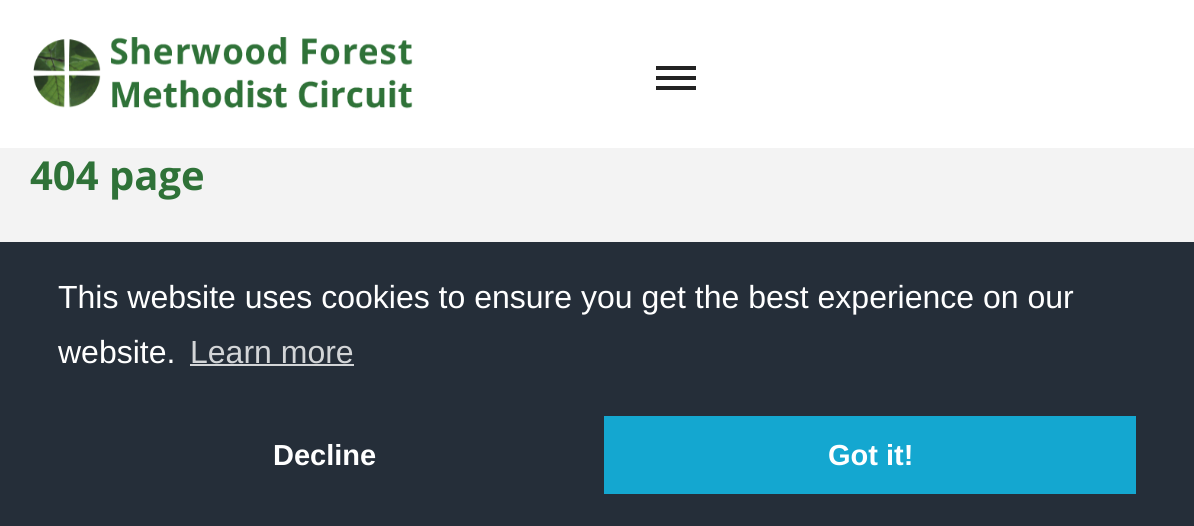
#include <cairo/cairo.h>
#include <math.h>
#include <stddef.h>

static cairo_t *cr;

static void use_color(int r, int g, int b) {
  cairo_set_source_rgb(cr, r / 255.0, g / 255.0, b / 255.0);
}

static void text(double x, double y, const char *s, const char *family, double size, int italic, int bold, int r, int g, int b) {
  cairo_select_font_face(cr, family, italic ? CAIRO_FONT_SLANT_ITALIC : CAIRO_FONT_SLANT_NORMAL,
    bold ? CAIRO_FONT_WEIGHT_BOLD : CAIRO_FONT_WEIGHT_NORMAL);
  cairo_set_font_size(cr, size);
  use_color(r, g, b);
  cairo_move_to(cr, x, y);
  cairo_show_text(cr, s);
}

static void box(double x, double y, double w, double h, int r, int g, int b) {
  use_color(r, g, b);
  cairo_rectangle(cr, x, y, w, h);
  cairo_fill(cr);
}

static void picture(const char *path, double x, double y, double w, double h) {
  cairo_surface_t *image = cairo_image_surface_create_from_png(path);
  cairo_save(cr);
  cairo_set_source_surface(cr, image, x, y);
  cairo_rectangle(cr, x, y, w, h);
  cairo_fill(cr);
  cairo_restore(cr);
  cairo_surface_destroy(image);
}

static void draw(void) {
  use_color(255, 255, 255);
  cairo_paint(cr);
  picture("img_01.png", 33, 37, 380, 72);
  box(656, 66, 40, 4, 34, 34, 34);
  box(656, 76, 40, 4, 34, 34, 34);
  box(656, 86, 40, 4, 34, 34, 34);
  box(0, 148, 1194, 94, 243, 243, 243);
  box(0, 242, 1194, 284, 37, 46, 57);
  box(190, 364, 164, 2, 211, 213, 215);
  box(604, 416, 532, 78, 20, 167, 208);
  text(30, 190, "404 page", "Open Sans", 40, 0, 1, 47, 114, 56);
  text(58, 308, "This website uses cookies to ensure you get the best experience on our", "Liberation Sans", 32, 0, 0, 255, 255, 255);
  text(58, 363, "website.", "Liberation Sans", 32, 0, 0, 255, 255, 255);
  text(190, 363, "Learn more", "Liberation Sans", 32, 0, 0, 211, 213, 215);
  text(273, 465, "Decline", "Liberation Sans", 29, 0, 1, 255, 255, 255);
  text(828, 465, "Got it!", "Liberation Sans", 29, 0, 1, 255, 255, 255);
}

int main(void) {
  cairo_surface_t *surface = cairo_image_surface_create(CAIRO_FORMAT_RGB24, 1194, 526);
  cr = cairo_create(surface);
  cairo_font_options_t *options = cairo_font_options_create();
  cairo_font_options_set_hint_metrics(options, CAIRO_HINT_METRICS_OFF);
  cairo_font_options_set_hint_style(options, CAIRO_HINT_STYLE_NONE);
  cairo_set_font_options(cr, options);
  cairo_set_miter_limit(cr, 4);
  draw();
  cairo_surface_write_to_png(surface, "out.png");
  cairo_font_options_destroy(options);
  cairo_destroy(cr);
  cairo_surface_destroy(surface);
  return 0;
}
